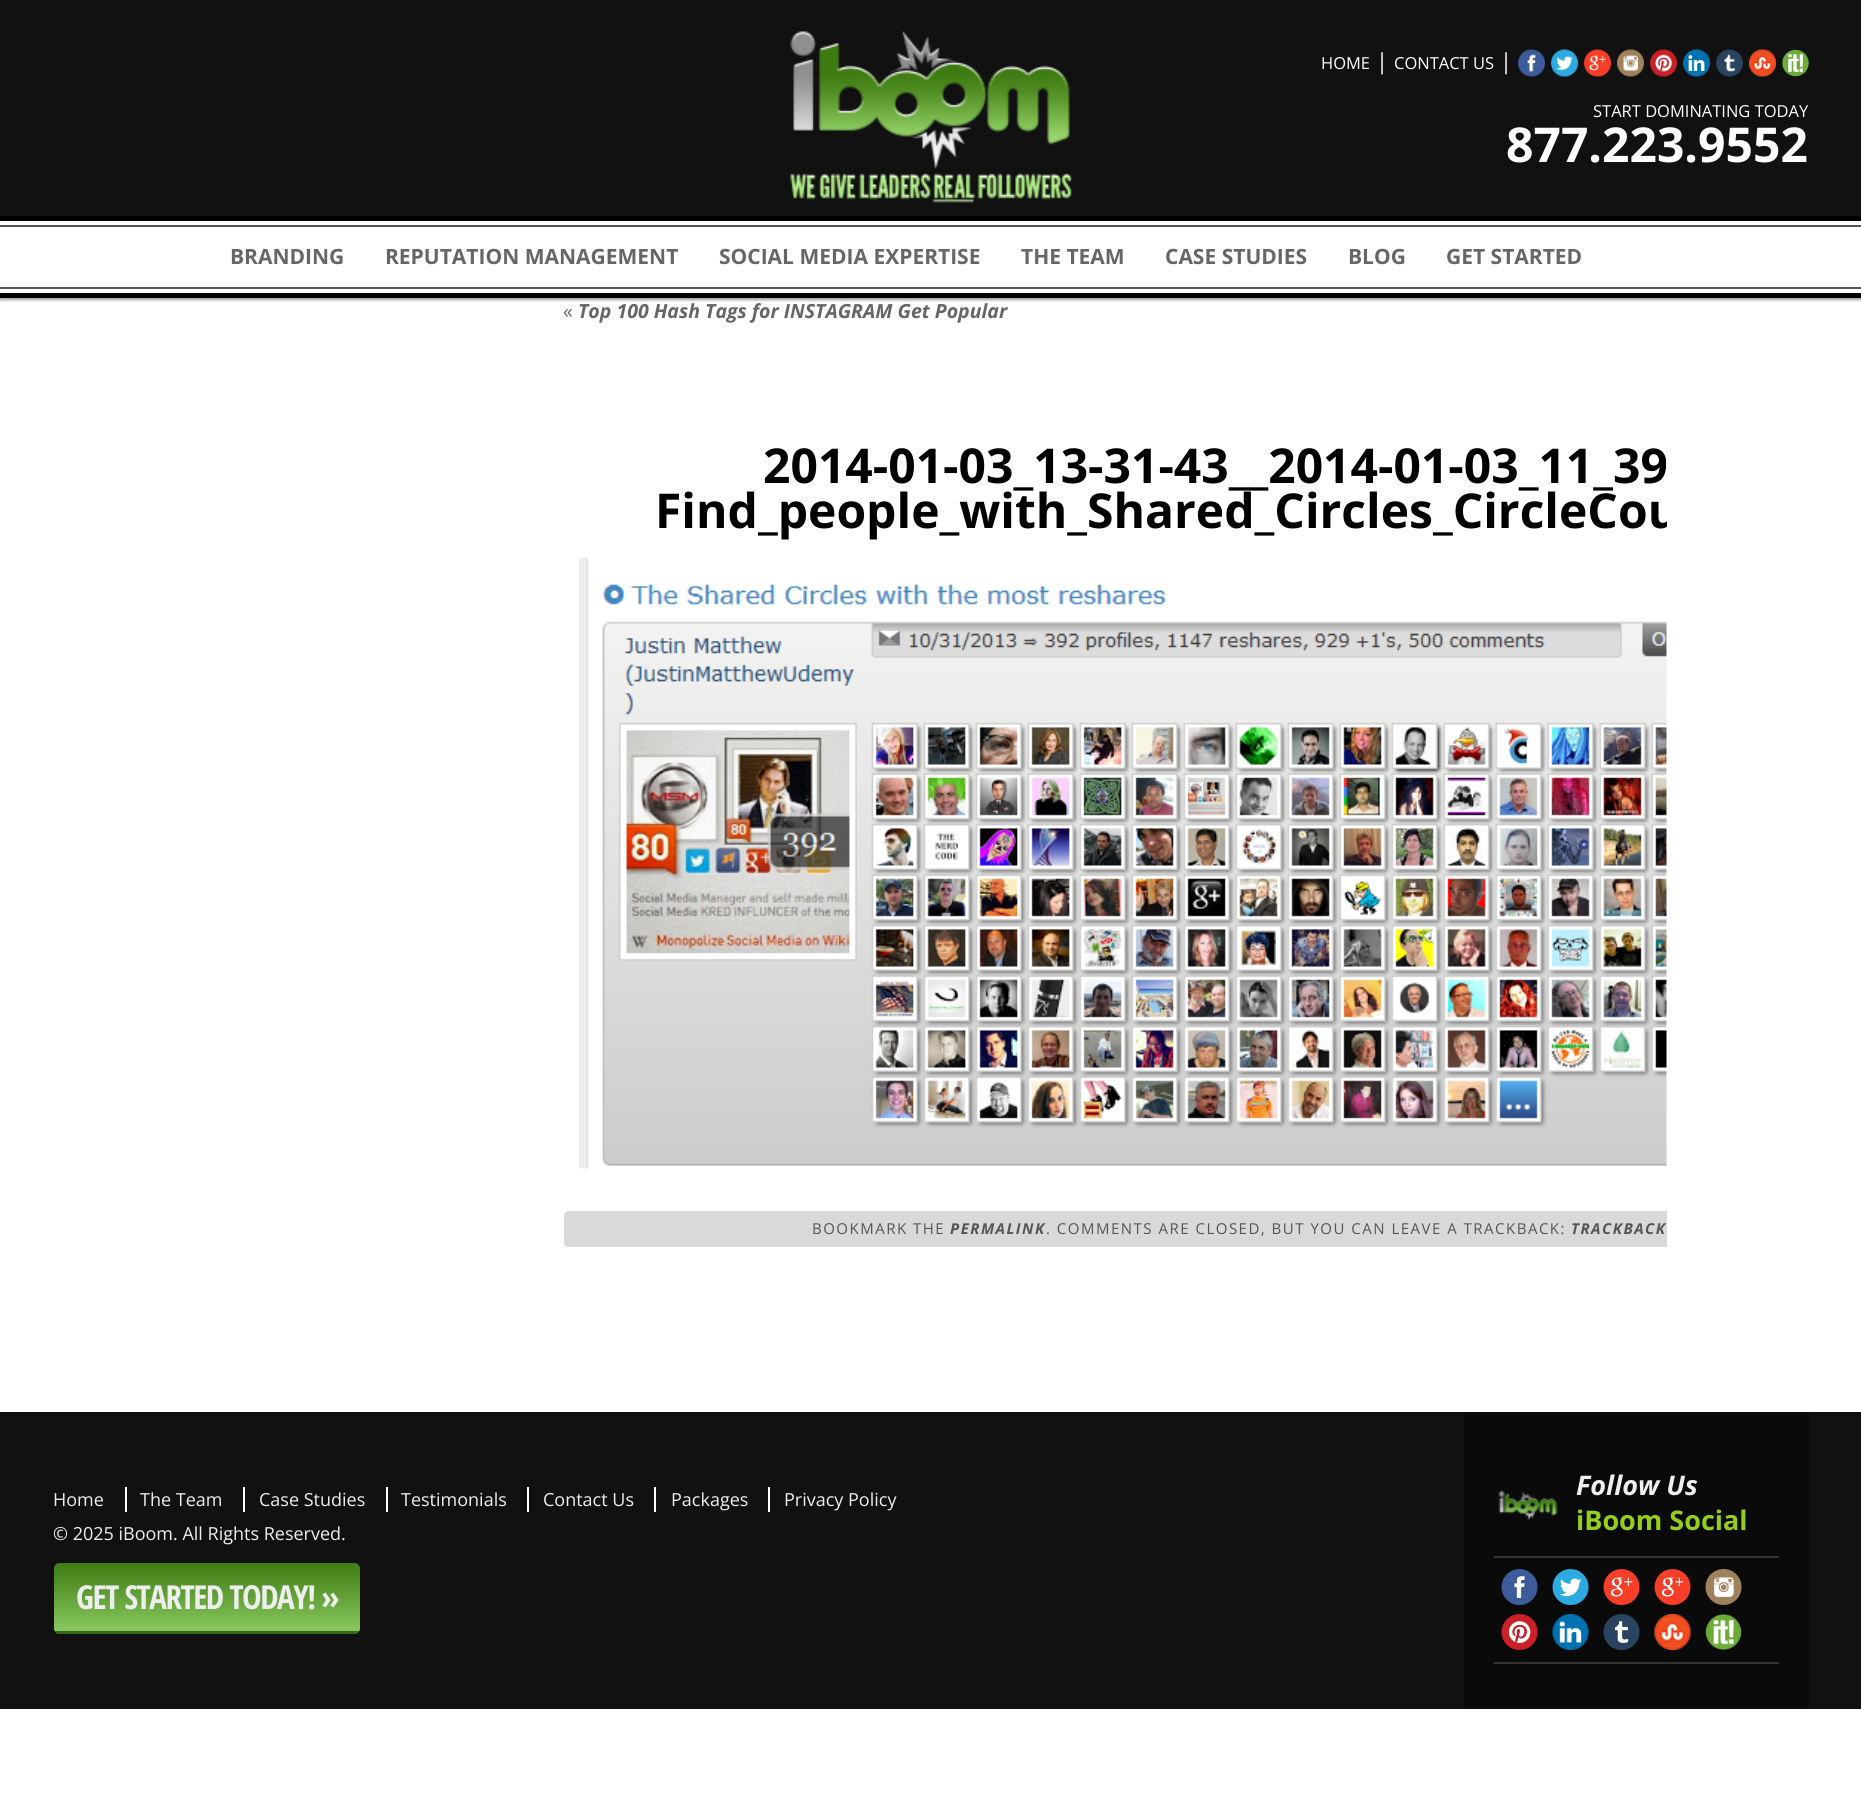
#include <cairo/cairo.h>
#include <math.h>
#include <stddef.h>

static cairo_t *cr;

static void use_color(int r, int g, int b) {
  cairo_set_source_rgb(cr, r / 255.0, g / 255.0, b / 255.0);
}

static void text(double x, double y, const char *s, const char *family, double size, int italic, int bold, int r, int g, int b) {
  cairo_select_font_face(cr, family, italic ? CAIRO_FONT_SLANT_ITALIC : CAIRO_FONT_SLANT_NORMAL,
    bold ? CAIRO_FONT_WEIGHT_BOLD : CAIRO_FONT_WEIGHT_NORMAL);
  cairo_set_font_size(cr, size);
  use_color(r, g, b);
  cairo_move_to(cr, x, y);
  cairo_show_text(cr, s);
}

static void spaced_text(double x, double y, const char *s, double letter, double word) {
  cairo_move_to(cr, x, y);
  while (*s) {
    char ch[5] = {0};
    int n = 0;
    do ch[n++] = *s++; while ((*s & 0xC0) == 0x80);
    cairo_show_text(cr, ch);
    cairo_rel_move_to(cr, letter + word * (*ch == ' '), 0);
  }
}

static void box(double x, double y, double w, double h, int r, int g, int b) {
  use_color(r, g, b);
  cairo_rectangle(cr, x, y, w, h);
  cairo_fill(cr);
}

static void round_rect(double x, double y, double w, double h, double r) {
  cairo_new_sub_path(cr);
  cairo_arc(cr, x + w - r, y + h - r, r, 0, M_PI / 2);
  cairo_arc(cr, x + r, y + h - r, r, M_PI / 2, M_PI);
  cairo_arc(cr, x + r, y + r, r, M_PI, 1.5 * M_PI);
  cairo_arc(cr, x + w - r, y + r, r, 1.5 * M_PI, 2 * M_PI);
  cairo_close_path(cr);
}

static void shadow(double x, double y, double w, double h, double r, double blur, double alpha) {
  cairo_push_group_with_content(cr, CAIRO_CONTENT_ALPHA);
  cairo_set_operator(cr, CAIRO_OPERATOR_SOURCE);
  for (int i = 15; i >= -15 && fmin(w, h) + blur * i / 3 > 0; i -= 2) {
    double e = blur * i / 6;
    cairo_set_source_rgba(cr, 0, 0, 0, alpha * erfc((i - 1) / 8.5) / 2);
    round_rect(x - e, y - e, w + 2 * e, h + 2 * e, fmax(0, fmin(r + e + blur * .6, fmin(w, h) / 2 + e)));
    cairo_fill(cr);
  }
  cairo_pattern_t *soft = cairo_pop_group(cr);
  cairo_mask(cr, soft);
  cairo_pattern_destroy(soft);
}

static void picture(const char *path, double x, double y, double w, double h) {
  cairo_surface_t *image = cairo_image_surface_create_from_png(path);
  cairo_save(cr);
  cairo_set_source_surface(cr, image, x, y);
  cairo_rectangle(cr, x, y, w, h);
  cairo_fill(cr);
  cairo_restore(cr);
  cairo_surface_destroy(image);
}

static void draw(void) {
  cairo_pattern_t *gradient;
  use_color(255, 255, 255);
  cairo_paint(cr);
  box(0, 0, 1861, 216, 17, 17, 17);
  picture("img_01.png", 790, 31, 282, 172);
  picture("img_02.png", 1518, 49, 27, 28);
  picture("img_03.png", 1551, 49, 27, 28);
  picture("img_04.png", 1584, 49, 27, 28);
  picture("img_05.png", 1617, 49, 27, 28);
  picture("img_06.png", 1650, 49, 27, 28);
  picture("img_07.png", 1683, 49, 27, 28);
  picture("img_08.png", 1716, 49, 27, 28);
  picture("img_09.png", 1749, 49, 27, 28);
  picture("img_10.png", 1782, 49, 27, 28);
  cairo_save(cr);
  cairo_rectangle(cr, 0, 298, 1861, 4);
  cairo_clip(cr);
  use_color(0, 0, 0);
  shadow(0, 219, 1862, 81, 0, 1.5, 0.4);
  cairo_restore(cr);
  box(0, 216, 1861, 5, 0, 0, 0);
  box(0, 293, 1861, 5, 0, 0, 0);
  box(0, 225, 1861, 2, 85, 85, 85);
  box(0, 287, 1861, 2, 85, 85, 85);
  picture("img_11.png", 579, 558, 1088, 611);
  use_color(217, 217, 217);
  cairo_new_path(cr);
  cairo_move_to(cr, 569, 1211);
  cairo_line_to(cr, 1667, 1211);
  cairo_line_to(cr, 1667, 1247);
  cairo_line_to(cr, 569, 1247);
  cairo_curve_to(cr, 566, 1247, 564, 1245, 564, 1242);
  cairo_line_to(cr, 564, 1216);
  cairo_curve_to(cr, 564, 1213, 566, 1211, 569, 1211);
  cairo_close_path(cr);
  cairo_fill(cr);
  box(0, 1412, 1861, 297, 17, 17, 17);
  box(125, 1487, 2, 25, 255, 255, 255);
  box(243, 1487, 2, 25, 255, 255, 255);
  box(386, 1487, 2, 25, 255, 255, 255);
  box(527, 1487, 2, 25, 255, 255, 255);
  box(654, 1487, 2, 25, 255, 255, 255);
  box(768, 1487, 2, 25, 255, 255, 255);
  box(1464, 1412, 345, 297, 10, 10, 10);
  picture("img_12.png", 1498, 1490, 60, 30);
  box(1494, 1556, 285, 2, 51, 51, 51);
  box(1494, 1662, 285, 2, 51, 51, 51);
  picture("img_13.png", 1501, 1569, 37, 36);
  picture("img_14.png", 1552, 1569, 37, 36);
  picture("img_15.png", 1603, 1569, 37, 36);
  picture("img_15.png", 1654, 1569, 37, 36);
  picture("img_16.png", 1705, 1569, 37, 36);
  picture("img_17.png", 1501, 1614, 37, 36);
  picture("img_18.png", 1552, 1614, 37, 36);
  picture("img_19.png", 1603, 1614, 37, 36);
  picture("img_20.png", 1654, 1614, 37, 36);
  picture("img_21.png", 1705, 1614, 37, 36);
  use_color(78, 140, 34);
  round_rect(54, 1563, 306, 71, 6);
  cairo_fill(cr);
  cairo_save(cr);
  round_rect(54, 1563, 306, 71, 6);
  cairo_clip(cr);
  gradient = cairo_pattern_create_linear(207, 1563, 207, 1631);
  cairo_pattern_add_color_stop_rgba(gradient, 0, 0.247, 0.486, 0.075, 1);
  cairo_pattern_add_color_stop_rgba(gradient, 1, 0.533, 0.784, 0.369, 1);
  cairo_set_source(cr, gradient);
  cairo_pattern_destroy(gradient);
  cairo_new_path(cr);
  cairo_move_to(cr, 60, 1563);
  cairo_line_to(cr, 354, 1563);
  cairo_curve_to(cr, 357.5, 1563, 360, 1565.5, 360, 1569);
  cairo_line_to(cr, 360, 1631);
  cairo_line_to(cr, 54, 1631);
  cairo_line_to(cr, 54, 1569);
  cairo_curve_to(cr, 54, 1565.5, 56.5, 1563, 60, 1563);
  cairo_close_path(cr);
  cairo_fill(cr);
  gradient = cairo_pattern_create_linear(207, 1631, 207, 1698);
  cairo_pattern_add_color_stop_rgba(gradient, 0, 0.247, 0.486, 0.075, 1);
  cairo_pattern_add_color_stop_rgba(gradient, 1, 0.533, 0.784, 0.369, 1);
  cairo_set_source(cr, gradient);
  cairo_pattern_destroy(gradient);
  cairo_rectangle(cr, 54, 1631, 306, 3);
  cairo_fill(cr);
  cairo_restore(cr);
  box(57, 1631, 300, 3, 55, 102, 22);
  text(1321, 69, "HOME", "Open Sans", 16.5, 0, 0, 255, 255, 255);
  text(1376, 69, "|", "Open Sans", 22, 0, 0, 255, 255, 255);
  text(1394, 69, "CONTACT US", "Open Sans", 16.5, 0, 0, 255, 255, 255);
  text(1500, 69, "|", "Open Sans", 22, 0, 0, 255, 255, 255);
  text(1593, 117, "START DOMINATING TODAY", "Open Sans", 16.5, 0, 0, 255, 255, 255);
  text(1506, 162, "877.223.9552", "Open Sans", 48, 0, 1, 255, 255, 255);
  text(230, 264, "BRANDING", "Open Sans", 21, 0, 1, 102, 102, 102);
  text(385, 264, "REPUTATION MANAGEMENT", "Open Sans", 21, 0, 1, 102, 102, 102);
  text(719, 264, "SOCIAL MEDIA EXPERTISE", "Open Sans", 21, 0, 1, 102, 102, 102);
  text(1021, 264, "THE TEAM", "Open Sans", 21, 0, 1, 102, 102, 102);
  text(1165, 264, "CASE STUDIES", "Open Sans", 21, 0, 1, 102, 102, 102);
  text(1348, 264, "BLOG", "Open Sans", 21, 0, 1, 102, 102, 102);
  text(1446, 264, "GET STARTED", "Open Sans", 21, 0, 1, 102, 102, 102);
  text(563, 318, "«", "Open Sans", 19.5, 0, 0, 102, 102, 102);
  text(578, 318, "Top 100 Hash Tags for INSTAGRAM Get Popular", "Open Sans", 19.5, 1, 1, 102, 102, 102);
  text(763, 483, "2014-01-03_13-31-43__2014-01-03_11_39", "Open Sans", 48, 0, 1, 0, 0, 0);
  cairo_save(cr);
  cairo_rectangle(cr, 564, 297, 1103, 1049);
  cairo_clip(cr);
  text(655, 528, "Find_people_with_Shared_Circles_CircleCou", "Open Sans", 48, 0, 1, 0, 0, 0);
  cairo_restore(cr);
  cairo_select_font_face(cr, "Open Sans", CAIRO_FONT_SLANT_NORMAL, CAIRO_FONT_WEIGHT_NORMAL);
  cairo_set_font_size(cr, 15);
  use_color(85, 85, 85);
  spaced_text(812, 1234, "BOOKMARK THE", 1.5, 0);
  cairo_select_font_face(cr, "Open Sans", CAIRO_FONT_SLANT_ITALIC, CAIRO_FONT_WEIGHT_BOLD);
  spaced_text(950, 1234, "PERMALINK", 1.5, 0);
  cairo_select_font_face(cr, "Open Sans", CAIRO_FONT_SLANT_NORMAL, CAIRO_FONT_WEIGHT_NORMAL);
  spaced_text(1046, 1234, ". COMMENTS ARE CLOSED, BUT YOU CAN LEAVE A TRACKBACK:", 1.5, 0);
  cairo_select_font_face(cr, "Open Sans", CAIRO_FONT_SLANT_ITALIC, CAIRO_FONT_WEIGHT_BOLD);
  spaced_text(1571, 1234, "TRACKBACK", 1.5, 0);
  text(53, 1506, "Home", "Open Sans", 18, 0, 0, 238, 238, 238);
  text(140, 1506, "The Team", "Open Sans", 18, 0, 0, 238, 238, 238);
  text(259, 1506, "Case Studies", "Open Sans", 18, 0, 0, 238, 238, 238);
  text(401, 1506, "Testimonials", "Open Sans", 18, 0, 0, 238, 238, 238);
  text(543, 1506, "Contact Us", "Open Sans", 18, 0, 0, 238, 238, 238);
  text(671, 1506, "Packages", "Open Sans", 18, 0, 0, 238, 238, 238);
  text(784, 1506, "Privacy Policy", "Open Sans", 18, 0, 0, 238, 238, 238);
  text(1576, 1495, "Follow Us", "Open Sans", 27, 1, 1, 238, 238, 238);
  text(1576, 1530, "iBoom Social", "Open Sans", 27, 0, 1, 147, 207, 28);
  text(53, 1540, "© 2025 iBoom. All Rights Reserved.", "Open Sans", 18, 0, 0, 238, 238, 238);
  cairo_select_font_face(cr, "Open Sans Condensed", CAIRO_FONT_SLANT_NORMAL, CAIRO_FONT_WEIGHT_BOLD);
  cairo_set_font_size(cr, 33);
  spaced_text(76, 1609, "GET STARTED TODAY! »", -1.5, 0);
}

int main(void) {
  cairo_surface_t *surface = cairo_image_surface_create(CAIRO_FORMAT_RGB24, 1861, 1794);
  cr = cairo_create(surface);
  cairo_font_options_t *options = cairo_font_options_create();
  cairo_font_options_set_hint_metrics(options, CAIRO_HINT_METRICS_OFF);
  cairo_font_options_set_hint_style(options, CAIRO_HINT_STYLE_NONE);
  cairo_set_font_options(cr, options);
  cairo_set_miter_limit(cr, 4);
  draw();
  cairo_surface_write_to_png(surface, "out.png");
  cairo_font_options_destroy(options);
  cairo_destroy(cr);
  cairo_surface_destroy(surface);
  return 0;
}
